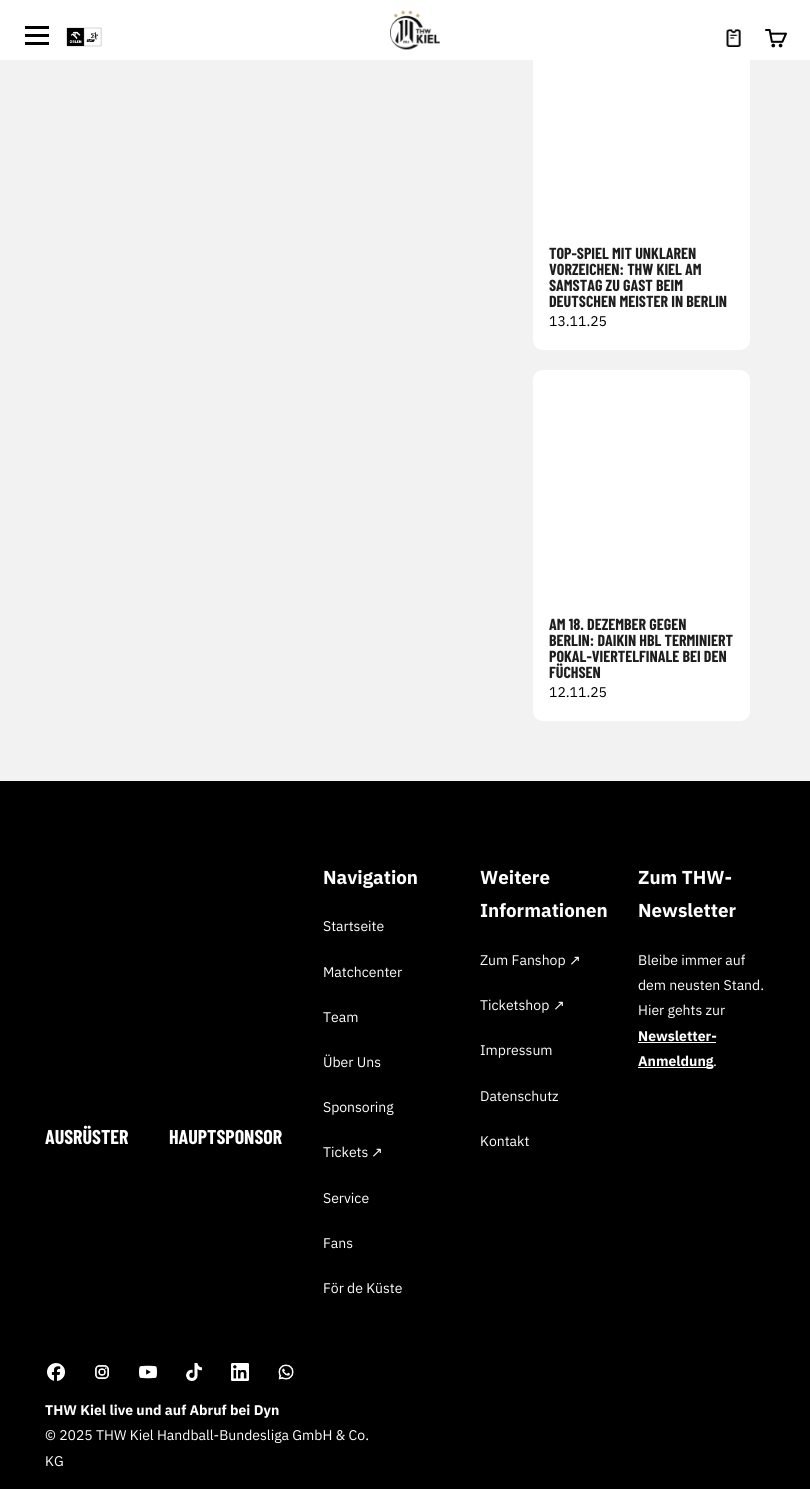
#include <cairo/cairo.h>
#include <math.h>
#include <stddef.h>

static cairo_t *cr;

static void use_color(int r, int g, int b) {
  cairo_set_source_rgb(cr, r / 255.0, g / 255.0, b / 255.0);
}

static void text(double x, double y, const char *s, const char *family, double size, int italic, int bold, int r, int g, int b) {
  cairo_select_font_face(cr, family, italic ? CAIRO_FONT_SLANT_ITALIC : CAIRO_FONT_SLANT_NORMAL,
    bold ? CAIRO_FONT_WEIGHT_BOLD : CAIRO_FONT_WEIGHT_NORMAL);
  cairo_set_font_size(cr, size);
  use_color(r, g, b);
  cairo_move_to(cr, x, y);
  cairo_show_text(cr, s);
}

static void box(double x, double y, double w, double h, int r, int g, int b) {
  use_color(r, g, b);
  cairo_rectangle(cr, x, y, w, h);
  cairo_fill(cr);
}

static void round_rect(double x, double y, double w, double h, double r) {
  cairo_new_sub_path(cr);
  cairo_arc(cr, x + w - r, y + h - r, r, 0, M_PI / 2);
  cairo_arc(cr, x + r, y + h - r, r, M_PI / 2, M_PI);
  cairo_arc(cr, x + r, y + r, r, M_PI, 1.5 * M_PI);
  cairo_arc(cr, x + w - r, y + r, r, 1.5 * M_PI, 2 * M_PI);
  cairo_close_path(cr);
}

static void picture(const char *path, double x, double y, double w, double h) {
  cairo_surface_t *image = cairo_image_surface_create_from_png(path);
  cairo_save(cr);
  cairo_set_source_surface(cr, image, x, y);
  cairo_rectangle(cr, x, y, w, h);
  cairo_fill(cr);
  cairo_restore(cr);
  cairo_surface_destroy(image);
}

static void draw(void) {
  use_color(242, 242, 242);
  cairo_paint(cr);
  use_color(255, 255, 255);
  round_rect(533, -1, 217, 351, 10);
  cairo_fill(cr);
  box(0, 0, 810, 60, 255, 255, 255);
  box(25, 26, 24, 3, 0, 0, 0);
  box(25, 34, 24, 3, 0, 0, 0);
  box(25, 42, 24, 3, 0, 0, 0);
  picture("img_01.png", 66, 27, 36, 20);
  picture("img_02.png", 390, 10, 50, 40);
  picture("img_03.png", 726, 29, 15, 18);
  picture("img_04.png", 765, 29, 22, 19);
  use_color(255, 255, 255);
  round_rect(533, 370, 217, 351, 10);
  cairo_fill(cr);
  box(0, 781, 810, 708, 0, 0, 0);
  box(638, 1042, 78, 1, 255, 255, 255);
  box(638, 1067, 75, 1, 255, 255, 255);
  picture("img_05.png", 47, 1363, 18, 18);
  picture("img_06.png", 95, 1365, 14, 14);
  picture("img_07.png", 139, 1365, 18, 14);
  picture("img_08.png", 186, 1363, 16, 18);
  picture("img_09.png", 231, 1363, 18, 18);
  picture("img_10.png", 278, 1364, 16, 16);
  text(549, 259, "TOP-SPIEL MIT UNKLAREN", "Barlow Condensed", 16, 0, 1, 30, 30, 30);
  text(549, 275, "VORZEICHEN: THW KIEL AM", "Barlow Condensed", 16, 0, 1, 30, 30, 30);
  text(549, 291, "SAMSTAG ZU GAST BEIM", "Barlow Condensed", 16, 0, 1, 30, 30, 30);
  text(549, 307, "DEUTSCHEN MEISTER IN BERLIN", "Barlow Condensed", 16, 0, 1, 30, 30, 30);
  text(549, 326, "13.11.25", "IBM Plex Sans", 14, 0, 0, 0, 0, 0);
  text(549, 630, "AM 18. DEZEMBER GEGEN", "Barlow Condensed", 16, 0, 1, 30, 30, 30);
  text(549, 646, "BERLIN: DAIKIN HBL TERMINIERT", "Barlow Condensed", 16, 0, 1, 30, 30, 30);
  text(549, 662, "POKAL-VIERTELFINALE BEI DEN", "Barlow Condensed", 16, 0, 1, 30, 30, 30);
  text(549, 678, "FÜCHSEN", "Barlow Condensed", 16, 0, 1, 30, 30, 30);
  text(549, 697, "12.11.25", "IBM Plex Sans", 14, 0, 0, 0, 0, 0);
  text(323, 884, "Navigation", "IBM Plex Sans", 18.75, 0, 1, 255, 255, 255);
  text(323, 931, "Startseite", "IBM Plex Sans", 14, 0, 0, 255, 255, 255);
  text(323, 977, "Matchcenter", "IBM Plex Sans", 14, 0, 0, 255, 255, 255);
  text(323, 1022, "Team", "IBM Plex Sans", 14, 0, 0, 255, 255, 255);
  text(323, 1067, "Über Uns", "IBM Plex Sans", 14, 0, 0, 255, 255, 255);
  text(323, 1112, "Sponsoring", "IBM Plex Sans", 14, 0, 0, 255, 255, 255);
  text(323, 1157, "Tickets", "IBM Plex Sans", 14, 0, 0, 255, 255, 255);
  text(371, 1157, "↗", "DejaVu Sans", 14, 0, 0, 255, 255, 255);
  text(323, 1203, "Service", "IBM Plex Sans", 14, 0, 0, 255, 255, 255);
  text(323, 1248, "Fans", "IBM Plex Sans", 14, 0, 0, 255, 255, 255);
  text(323, 1293, "För de Küste", "IBM Plex Sans", 14, 0, 0, 255, 255, 255);
  text(480, 884, "Weitere", "IBM Plex Sans", 18.75, 0, 1, 255, 255, 255);
  text(480, 917, "Informationen", "IBM Plex Sans", 18.75, 0, 1, 255, 255, 255);
  text(480, 965, "Zum Fanshop", "IBM Plex Sans", 14, 0, 0, 255, 255, 255);
  text(569, 965, "↗", "DejaVu Sans", 14, 0, 0, 255, 255, 255);
  text(480, 1010, "Ticketshop", "IBM Plex Sans", 14, 0, 0, 255, 255, 255);
  text(553, 1010, "↗", "DejaVu Sans", 14, 0, 0, 255, 255, 255);
  text(480, 1055, "Impressum", "IBM Plex Sans", 14, 0, 0, 255, 255, 255);
  text(480, 1101, "Datenschutz", "IBM Plex Sans", 14, 0, 0, 255, 255, 255);
  text(480, 1146, "Kontakt", "IBM Plex Sans", 14, 0, 0, 255, 255, 255);
  text(638, 884, "Zum THW-", "IBM Plex Sans", 18.75, 0, 1, 255, 255, 255);
  text(638, 917, "Newsletter", "IBM Plex Sans", 18.75, 0, 1, 255, 255, 255);
  text(638, 965, "Bleibe immer auf", "IBM Plex Sans", 14, 0, 0, 255, 255, 255);
  text(638, 990, "dem neusten Stand.", "IBM Plex Sans", 14, 0, 0, 255, 255, 255);
  text(638, 1015, "Hier gehts zur", "IBM Plex Sans", 14, 0, 0, 255, 255, 255);
  text(638, 1041, "Newsletter-", "IBM Plex Sans", 14, 0, 1, 255, 255, 255);
  text(638, 1066, "Anmeldung", "IBM Plex Sans", 14, 0, 1, 255, 255, 255);
  text(713, 1066, ".", "IBM Plex Sans", 14, 0, 0, 255, 255, 255);
  text(45, 1144, "AUSRÜSTER", "Barlow Condensed", 20, 0, 1, 255, 255, 255);
  text(169, 1144, "HAUPTSPONSOR", "Barlow Condensed", 20, 0, 1, 255, 255, 255);
  text(45, 1415, "THW Kiel live und auf Abruf bei Dyn", "IBM Plex Sans", 14, 0, 1, 255, 255, 255);
  text(45, 1440, "© 2025 THW Kiel Handball-Bundesliga GmbH & Co.", "IBM Plex Sans", 14, 0, 0, 255, 255, 255);
  text(45, 1466, "KG", "IBM Plex Sans", 14, 0, 0, 255, 255, 255);
}

int main(void) {
  cairo_surface_t *surface = cairo_image_surface_create(CAIRO_FORMAT_RGB24, 810, 1489);
  cr = cairo_create(surface);
  cairo_font_options_t *options = cairo_font_options_create();
  cairo_font_options_set_hint_metrics(options, CAIRO_HINT_METRICS_OFF);
  cairo_font_options_set_hint_style(options, CAIRO_HINT_STYLE_NONE);
  cairo_set_font_options(cr, options);
  cairo_set_miter_limit(cr, 4);
  draw();
  cairo_surface_write_to_png(surface, "out.png");
  cairo_font_options_destroy(options);
  cairo_destroy(cr);
  cairo_surface_destroy(surface);
  return 0;
}
